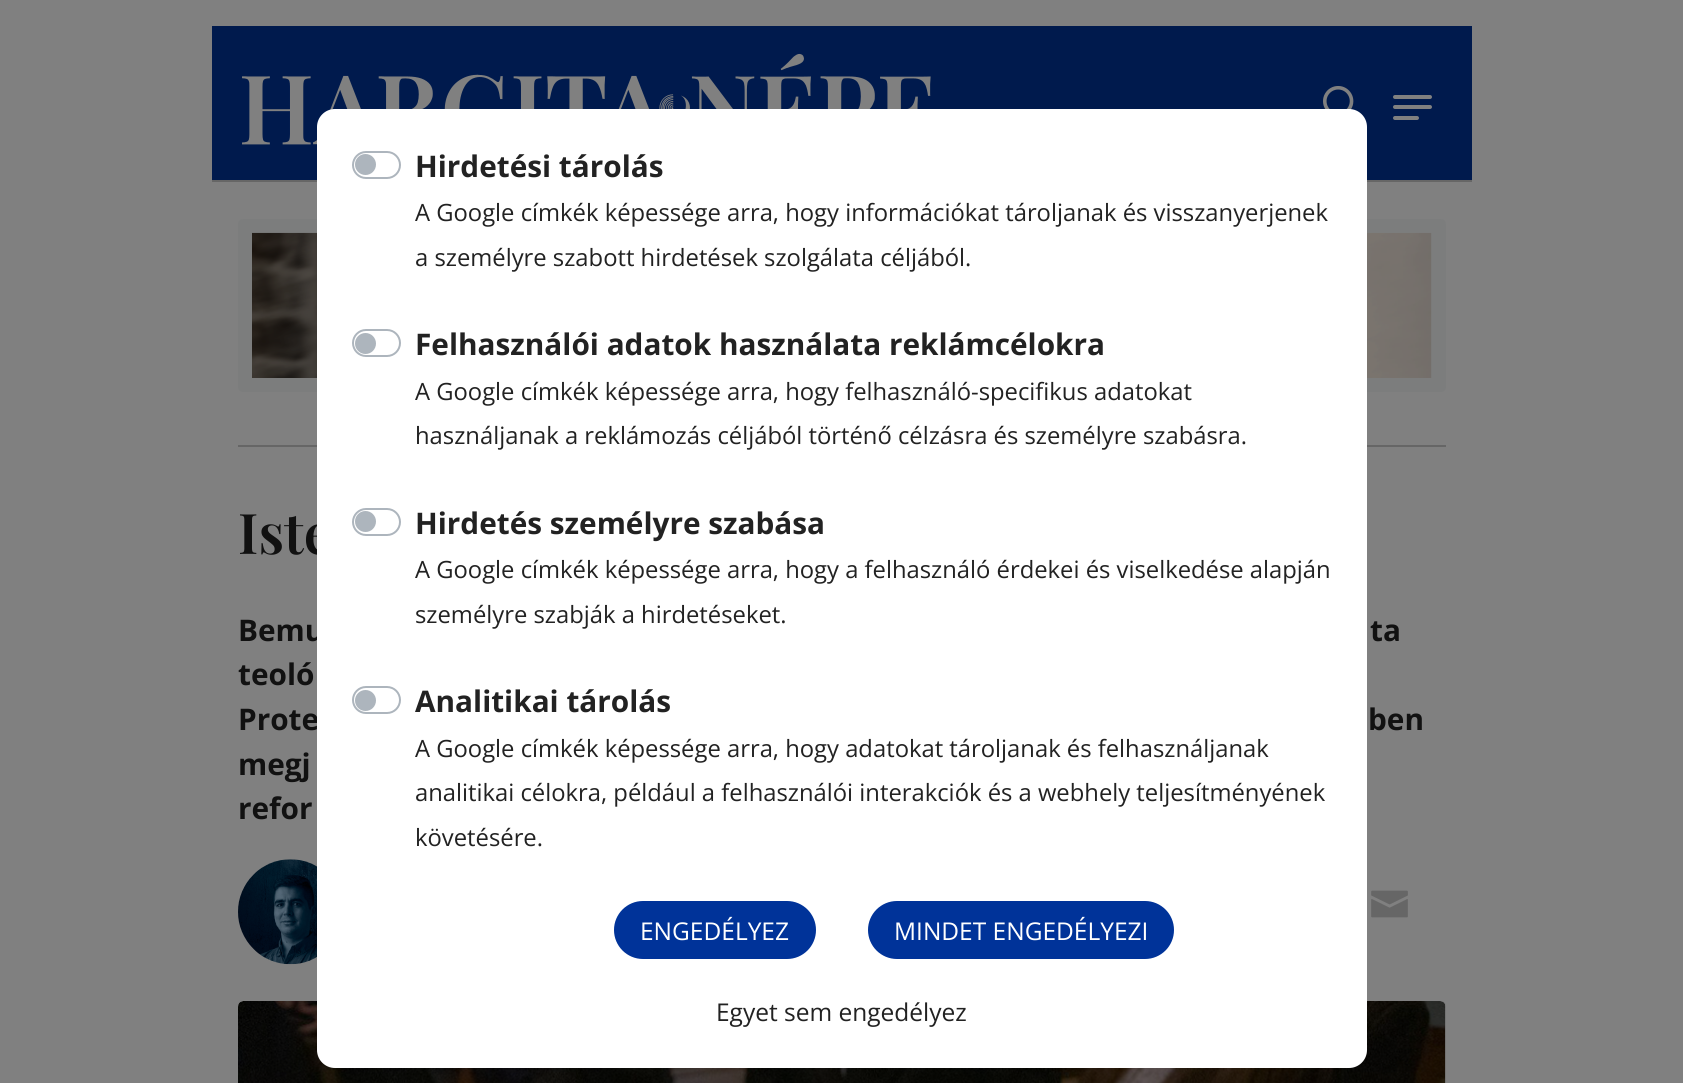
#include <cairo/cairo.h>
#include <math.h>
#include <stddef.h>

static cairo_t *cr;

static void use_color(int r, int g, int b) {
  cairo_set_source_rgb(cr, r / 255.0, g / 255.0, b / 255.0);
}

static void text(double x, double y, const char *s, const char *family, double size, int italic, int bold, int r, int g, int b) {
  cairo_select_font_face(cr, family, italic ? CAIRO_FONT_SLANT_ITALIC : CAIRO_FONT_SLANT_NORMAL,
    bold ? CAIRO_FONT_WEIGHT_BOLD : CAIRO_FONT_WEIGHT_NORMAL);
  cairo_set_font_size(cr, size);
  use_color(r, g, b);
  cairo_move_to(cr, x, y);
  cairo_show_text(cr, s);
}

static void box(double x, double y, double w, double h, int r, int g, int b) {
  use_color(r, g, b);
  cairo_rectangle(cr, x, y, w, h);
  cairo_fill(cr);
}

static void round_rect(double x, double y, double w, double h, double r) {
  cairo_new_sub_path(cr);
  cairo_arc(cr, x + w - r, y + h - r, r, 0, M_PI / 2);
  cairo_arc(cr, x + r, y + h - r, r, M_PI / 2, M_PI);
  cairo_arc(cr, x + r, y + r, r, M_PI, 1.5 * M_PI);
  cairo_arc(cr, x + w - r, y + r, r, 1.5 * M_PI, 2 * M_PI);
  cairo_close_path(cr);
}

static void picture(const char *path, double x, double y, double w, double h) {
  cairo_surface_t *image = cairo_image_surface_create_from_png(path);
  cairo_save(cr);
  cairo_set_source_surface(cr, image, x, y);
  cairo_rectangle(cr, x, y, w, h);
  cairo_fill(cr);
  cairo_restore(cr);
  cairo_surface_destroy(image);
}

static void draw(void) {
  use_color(128, 128, 128);
  cairo_paint(cr);
  box(212, 26, 1260, 154, 0, 26, 77);
  picture("img_01.png", 242, 53, 689, 92);
  picture("img_02.png", 1323, 86, 31, 24);
  use_color(128, 128, 128);
  round_rect(1393, 95, 39, 4, 2);
  cairo_fill(cr);
  round_rect(1393, 105, 39, 4, 2);
  cairo_fill(cr);
  round_rect(1393, 116, 26, 4, 2);
  cairo_fill(cr);
  box(212, 180, 1260, 2, 102, 102, 102);
  box(238, 445, 1208, 2, 102, 102, 102);
  use_color(124, 125, 125);
  round_rect(238, 219, 1208, 173, 5);
  cairo_fill(cr);
  picture("img_03.png", 252, 232, 1180, 146);
  picture("img_04.png", 238, 859, 79, 106);
  picture("img_05.png", 1371, 890, 37, 28);
  use_color(119, 119, 119);
  round_rect(238, 1001, 1208, 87, 5);
  cairo_fill(cr);
  picture("img_06.png", 238, 1001, 1208, 82);
  text(238, 554, "Iste", "Playfair Display SemiBold", 56, 0, 0, 17, 17, 17);
  text(238, 641, "Bemu", "Open Sans", 29.75, 0, 1, 17, 17, 17);
  text(1370, 641, "ta", "Open Sans", 29.75, 0, 1, 17, 17, 17);
  text(238, 685, "teoló", "Open Sans", 29.75, 0, 1, 17, 17, 17);
  text(238, 730, "Prote", "Open Sans", 29.75, 0, 1, 17, 17, 17);
  use_color(255, 255, 255);
  round_rect(317, 109, 1050, 959, 18);
  cairo_fill(cr);
  text(716, 1021, "Egyet sem engedélyez", "Open Sans", 24.5, 0, 0, 34, 34, 34);
  use_color(0, 51, 153);
  round_rect(868, 901, 306, 58, 29);
  cairo_fill(cr);
  text(894, 940, "MINDET ENGEDÉLYEZI", "Open Sans", 24.5, 0, 0, 255, 255, 255);
  use_color(0, 51, 153);
  round_rect(614, 901, 202, 58, 29);
  cairo_fill(cr);
  text(640, 940, "ENGEDÉLYEZ", "Open Sans", 24.5, 0, 0, 255, 255, 255);
  round_rect(353, 687, 47, 26, 13);
  use_color(173, 181, 189);
  cairo_stroke(cr);
  cairo_arc(cr, 365.5, 700.5, 10.5, 0, 2 * M_PI);
  cairo_fill(cr);
  text(415, 712, "Analitikai tárolás", "Open Sans", 29.75, 0, 1, 34, 34, 34);
  text(415, 846, "követésére.", "Open Sans", 23.8, 0, 0, 34, 34, 34);
  text(415, 801, "analitikai célokra, például a felhasználói interakciók és a webhely teljesítményének", "Open Sans", 23.8, 0, 0, 34, 34, 34);
  text(415, 757, "A Google címkék képessége arra, hogy adatokat tároljanak és felhasználjanak", "Open Sans", 23.8, 0, 0, 34, 34, 34);
  round_rect(353, 509, 47, 26, 13);
  use_color(173, 181, 189);
  cairo_stroke(cr);
  cairo_arc(cr, 365.5, 521.5, 10.5, 0, 2 * M_PI);
  cairo_fill(cr);
  text(415, 534, "Hirdetés személyre szabása", "Open Sans", 29.75, 0, 1, 34, 34, 34);
  text(415, 623, "személyre szabják a hirdetéseket.", "Open Sans", 23.8, 0, 0, 34, 34, 34);
  text(415, 578, "A Google címkék képessége arra, hogy a felhasználó érdekei és viselkedése alapján", "Open Sans", 23.8, 0, 0, 34, 34, 34);
  round_rect(353, 330, 47, 26, 13);
  use_color(173, 181, 189);
  cairo_stroke(cr);
  cairo_arc(cr, 365.5, 343.5, 10.5, 0, 2 * M_PI);
  cairo_fill(cr);
  text(415, 355, "Felhasználói adatok használata reklámcélokra", "Open Sans", 29.75, 0, 1, 34, 34, 34);
  text(415, 444, "használjanak a reklámozás céljából történő célzásra és személyre szabásra.", "Open Sans", 23.8, 0, 0, 34, 34, 34);
  text(415, 400, "A Google címkék képessége arra, hogy felhasználó-specifikus adatokat", "Open Sans", 23.8, 0, 0, 34, 34, 34);
  round_rect(353, 152, 47, 26, 13);
  use_color(173, 181, 189);
  cairo_stroke(cr);
  cairo_arc(cr, 365.5, 164.5, 10.5, 0, 2 * M_PI);
  cairo_fill(cr);
  text(415, 177, "Hirdetési tárolás", "Open Sans", 29.75, 0, 1, 34, 34, 34);
  text(415, 266, "a személyre szabott hirdetések szolgálata céljából.", "Open Sans", 23.8, 0, 0, 34, 34, 34);
  text(415, 221, "A Google címkék képessége arra, hogy információkat tároljanak és visszanyerjenek", "Open Sans", 23.8, 0, 0, 34, 34, 34);
  text(1368, 730, "ben", "Open Sans", 29.75, 0, 1, 17, 17, 17);
  text(238, 775, "megj", "Open Sans", 29.75, 0, 1, 17, 17, 17);
  text(238, 819, "refor", "Open Sans", 29.75, 0, 1, 17, 17, 17);
}

int main(void) {
  cairo_surface_t *surface = cairo_image_surface_create(CAIRO_FORMAT_RGB24, 1683, 1083);
  cr = cairo_create(surface);
  cairo_font_options_t *options = cairo_font_options_create();
  cairo_font_options_set_hint_metrics(options, CAIRO_HINT_METRICS_OFF);
  cairo_font_options_set_hint_style(options, CAIRO_HINT_STYLE_NONE);
  cairo_set_font_options(cr, options);
  cairo_set_miter_limit(cr, 4);
  draw();
  cairo_surface_write_to_png(surface, "out.png");
  cairo_font_options_destroy(options);
  cairo_destroy(cr);
  cairo_surface_destroy(surface);
  return 0;
}
